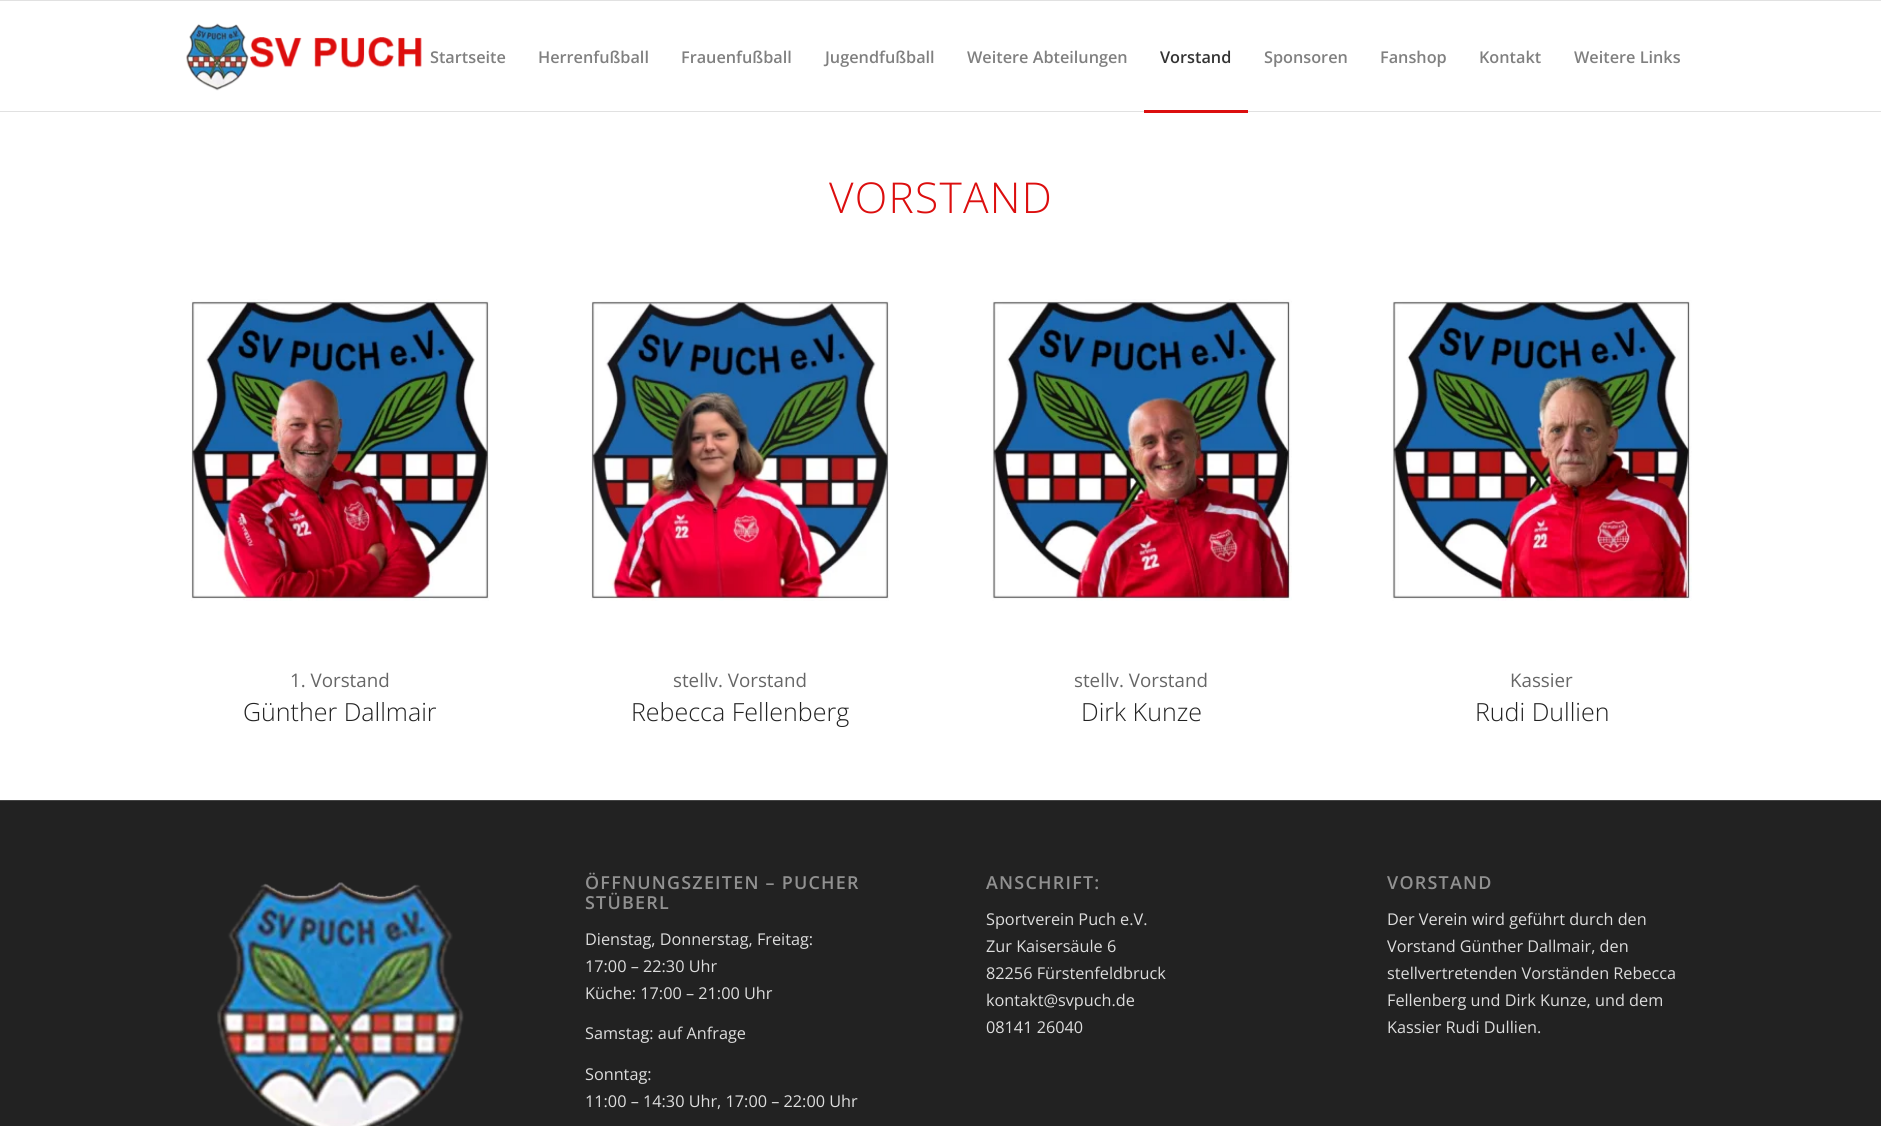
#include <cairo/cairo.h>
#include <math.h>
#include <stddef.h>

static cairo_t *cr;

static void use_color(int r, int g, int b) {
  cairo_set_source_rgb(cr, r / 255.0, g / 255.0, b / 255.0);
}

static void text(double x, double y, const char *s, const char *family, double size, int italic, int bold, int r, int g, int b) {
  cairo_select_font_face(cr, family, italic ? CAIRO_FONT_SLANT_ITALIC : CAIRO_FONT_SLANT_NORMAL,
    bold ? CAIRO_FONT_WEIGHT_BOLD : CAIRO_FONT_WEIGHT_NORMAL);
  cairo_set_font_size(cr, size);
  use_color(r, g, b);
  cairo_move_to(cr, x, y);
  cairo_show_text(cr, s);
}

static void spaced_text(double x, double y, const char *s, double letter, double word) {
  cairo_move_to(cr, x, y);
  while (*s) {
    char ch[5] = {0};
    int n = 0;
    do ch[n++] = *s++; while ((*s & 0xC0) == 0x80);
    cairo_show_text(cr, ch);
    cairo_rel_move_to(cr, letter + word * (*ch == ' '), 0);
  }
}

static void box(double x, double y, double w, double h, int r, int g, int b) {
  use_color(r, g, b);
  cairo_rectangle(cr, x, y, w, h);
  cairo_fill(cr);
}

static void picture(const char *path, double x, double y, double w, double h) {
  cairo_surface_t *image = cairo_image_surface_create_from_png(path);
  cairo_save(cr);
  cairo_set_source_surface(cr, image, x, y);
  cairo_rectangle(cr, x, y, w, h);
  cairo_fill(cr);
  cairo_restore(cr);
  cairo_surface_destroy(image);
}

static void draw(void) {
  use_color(255, 255, 255);
  cairo_paint(cr);
  box(0, 0, 1881, 1, 225, 225, 225);
  box(0, 111, 1881, 1, 225, 225, 225);
  picture("img_01.png", 186, 23, 236, 68);
  box(1144, 110, 104, 3, 220, 14, 14);
  picture("img_02.png", 191, 299, 298, 302);
  picture("img_03.png", 591, 301, 298, 300);
  picture("img_04.png", 992, 299, 300, 302);
  picture("img_05.png", 1392, 300, 300, 301);
  box(0, 801, 1881, 325, 34, 34, 34);
  box(0, 800, 1881, 1, 68, 68, 68);
  picture("img_06.png", 217, 882, 247, 244);
  text(430, 63, "Startseite", "Open Sans SemiBold", 16.25, 0, 0, 128, 128, 128);
  text(538, 63, "Herrenfußball", "Open Sans SemiBold", 16.25, 0, 0, 128, 128, 128);
  text(681, 63, "Frauenfußball", "Open Sans SemiBold", 16.25, 0, 0, 128, 128, 128);
  text(825, 63, "Jugendfußball", "Open Sans SemiBold", 16.25, 0, 0, 128, 128, 128);
  text(967, 63, "Weitere Abteilungen", "Open Sans SemiBold", 16.25, 0, 0, 128, 128, 128);
  text(1160, 63, "Vorstand", "Open Sans SemiBold", 16.25, 0, 0, 51, 51, 51);
  text(1264, 63, "Sponsoren", "Open Sans SemiBold", 16.25, 0, 0, 128, 128, 128);
  text(1380, 63, "Fanshop", "Open Sans SemiBold", 16.25, 0, 0, 128, 128, 128);
  text(1479, 63, "Kontakt", "Open Sans SemiBold", 16.25, 0, 0, 128, 128, 128);
  text(1574, 63, "Weitere Links", "Open Sans SemiBold", 16.25, 0, 0, 128, 128, 128);
  cairo_select_font_face(cr, "Open Sans Light", CAIRO_FONT_SLANT_NORMAL, CAIRO_FONT_WEIGHT_NORMAL);
  cairo_set_font_size(cr, 42.5);
  use_color(220, 14, 14);
  spaced_text(829, 213, "VORSTAND", 1.25, 0);
  text(290, 687, "1. Vorstand", "Open Sans", 18.75, 0, 0, 102, 102, 102);
  text(243, 721, "Günther Dallmair", "Open Sans Light", 25, 0, 0, 34, 34, 34);
  text(673, 687, "stellv. Vorstand", "Open Sans", 18.75, 0, 0, 102, 102, 102);
  text(631, 721, "Rebecca Fellenberg", "Open Sans Light", 25, 0, 0, 34, 34, 34);
  text(1074, 687, "stellv. Vorstand", "Open Sans", 18.75, 0, 0, 102, 102, 102);
  text(1081, 721, "Dirk Kunze", "Open Sans Light", 25, 0, 0, 34, 34, 34);
  text(1510, 687, "Kassier", "Open Sans", 18.75, 0, 0, 102, 102, 102);
  text(1475, 721, "Rudi Dullien", "Open Sans Light", 25, 0, 0, 34, 34, 34);
  cairo_select_font_face(cr, "Open Sans SemiBold", CAIRO_FONT_SLANT_NORMAL, CAIRO_FONT_WEIGHT_NORMAL);
  cairo_set_font_size(cr, 17.9);
  use_color(145, 145, 145);
  spaced_text(585, 889, "ÖFFNUNGSZEITEN – PUCHER", 1.25, 0);
  spaced_text(585, 909, "STÜBERL", 1.25, 0);
  text(585, 945, "Dienstag, Donnerstag, Freitag:", "Open Sans", 16.25, 0, 0, 221, 221, 221);
  text(585, 972, "17:00 – 22:30 Uhr", "Open Sans", 16.25, 0, 0, 221, 221, 221);
  text(585, 999, "Küche: 17:00 – 21:00 Uhr", "Open Sans", 16.25, 0, 0, 221, 221, 221);
  text(585, 1039, "Samstag: auf Anfrage", "Open Sans", 16.25, 0, 0, 221, 221, 221);
  text(585, 1080, "Sonntag:", "Open Sans", 16.25, 0, 0, 221, 221, 221);
  text(585, 1107, "11:00 – 14:30 Uhr, 17:00 – 22:00 Uhr", "Open Sans", 16.25, 0, 0, 221, 221, 221);
  cairo_select_font_face(cr, "Open Sans SemiBold", CAIRO_FONT_SLANT_NORMAL, CAIRO_FONT_WEIGHT_NORMAL);
  cairo_set_font_size(cr, 17.9);
  use_color(145, 145, 145);
  spaced_text(986, 889, "ANSCHRIFT:", 1.25, 0);
  text(986, 925, "Sportverein Puch e.V.", "Open Sans", 16.25, 0, 0, 221, 221, 221);
  text(986, 952, "Zur Kaisersäule 6", "Open Sans", 16.25, 0, 0, 221, 221, 221);
  text(986, 979, "82256 Fürstenfeldbruck", "Open Sans", 16.25, 0, 0, 221, 221, 221);
  text(986, 1006, "kontakt@svpuch.de", "Open Sans", 16.25, 0, 0, 221, 221, 221);
  text(986, 1033, "08141 26040", "Open Sans", 16.25, 0, 0, 221, 221, 221);
  cairo_select_font_face(cr, "Open Sans SemiBold", CAIRO_FONT_SLANT_NORMAL, CAIRO_FONT_WEIGHT_NORMAL);
  cairo_set_font_size(cr, 17.9);
  use_color(145, 145, 145);
  spaced_text(1387, 889, "VORSTAND", 1.25, 0);
  text(1387, 925, "Der Verein wird geführt durch den", "Open Sans", 16.25, 0, 0, 221, 221, 221);
  text(1387, 952, "Vorstand Günther Dallmair, den", "Open Sans", 16.25, 0, 0, 221, 221, 221);
  text(1387, 979, "stellvertretenden Vorständen Rebecca", "Open Sans", 16.25, 0, 0, 221, 221, 221);
  text(1387, 1006, "Fellenberg und Dirk Kunze, und dem", "Open Sans", 16.25, 0, 0, 221, 221, 221);
  text(1387, 1033, "Kassier Rudi Dullien.", "Open Sans", 16.25, 0, 0, 221, 221, 221);
}

int main(void) {
  cairo_surface_t *surface = cairo_image_surface_create(CAIRO_FORMAT_RGB24, 1881, 1126);
  cr = cairo_create(surface);
  cairo_font_options_t *options = cairo_font_options_create();
  cairo_font_options_set_hint_metrics(options, CAIRO_HINT_METRICS_OFF);
  cairo_font_options_set_hint_style(options, CAIRO_HINT_STYLE_NONE);
  cairo_set_font_options(cr, options);
  cairo_set_miter_limit(cr, 4);
  draw();
  cairo_surface_write_to_png(surface, "out.png");
  cairo_font_options_destroy(options);
  cairo_destroy(cr);
  cairo_surface_destroy(surface);
  return 0;
}
